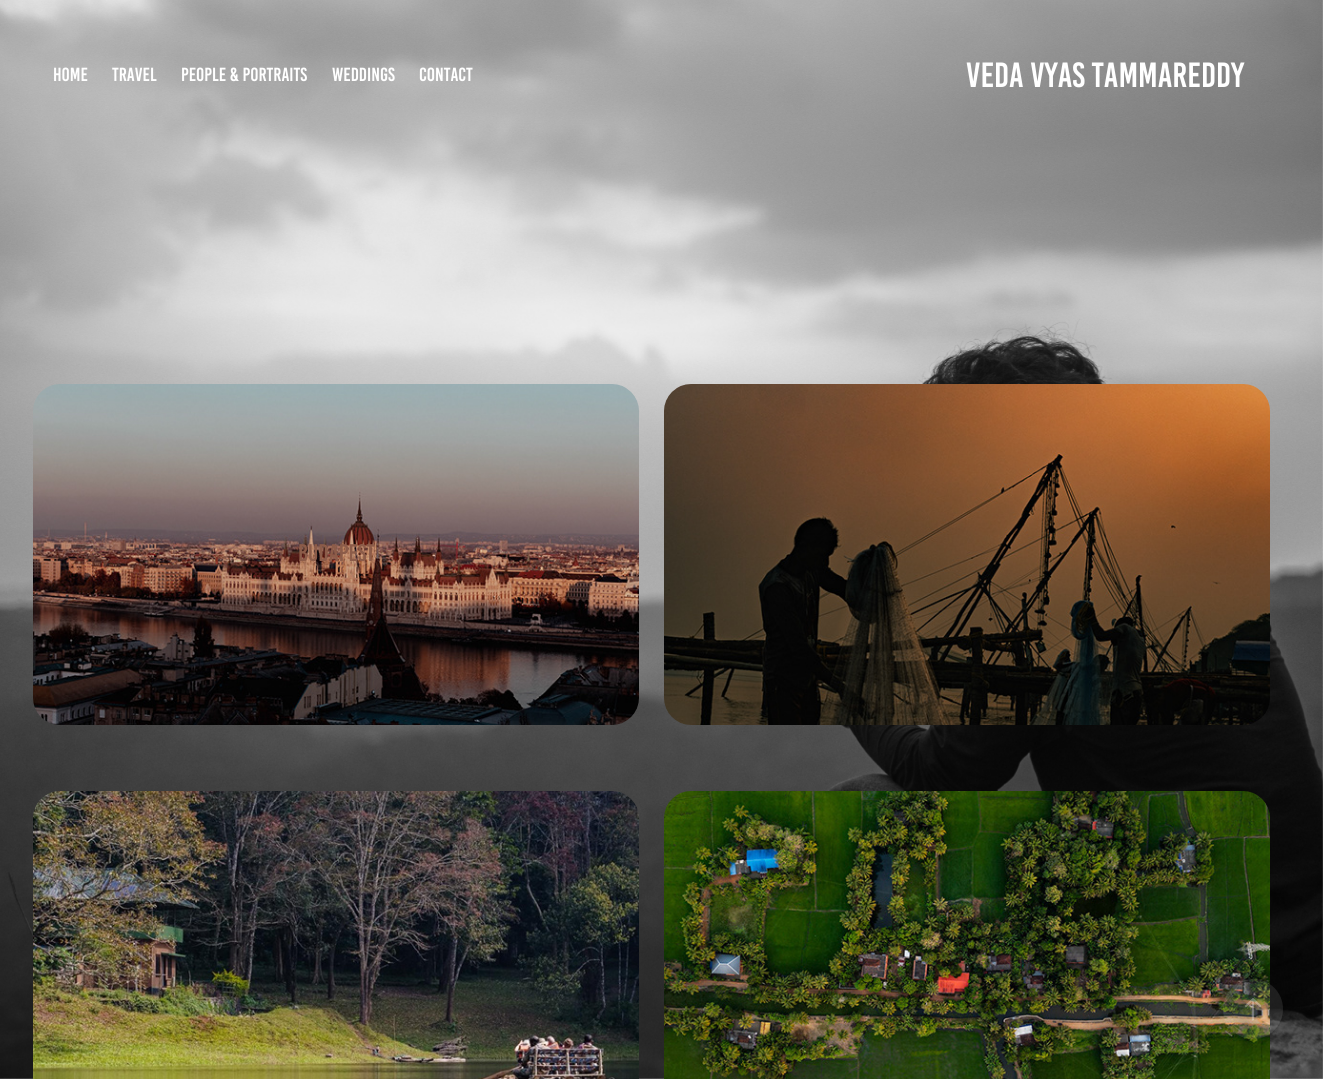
#include <cairo/cairo.h>
#include <math.h>
#include <stddef.h>

static cairo_t *cr;

static void use_color(int r, int g, int b) {
  cairo_set_source_rgb(cr, r / 255.0, g / 255.0, b / 255.0);
}

static void text(double x, double y, const char *s, const char *family, double size, int italic, int bold, int r, int g, int b) {
  cairo_select_font_face(cr, family, italic ? CAIRO_FONT_SLANT_ITALIC : CAIRO_FONT_SLANT_NORMAL,
    bold ? CAIRO_FONT_WEIGHT_BOLD : CAIRO_FONT_WEIGHT_NORMAL);
  cairo_set_font_size(cr, size);
  use_color(r, g, b);
  cairo_move_to(cr, x, y);
  cairo_show_text(cr, s);
}

static void picture(const char *path, double x, double y, double w, double h) {
  cairo_surface_t *image = cairo_image_surface_create_from_png(path);
  cairo_save(cr);
  cairo_set_source_surface(cr, image, x, y);
  cairo_rectangle(cr, x, y, w, h);
  cairo_fill(cr);
  cairo_restore(cr);
  cairo_surface_destroy(image);
}

static void draw(void) {
  use_color(255, 255, 255);
  cairo_paint(cr);
  picture("img_01.png", 0, 0, 1323, 1079);
  picture("img_02.png", 33, 384, 606, 341);
  picture("img_03.png", 664, 384, 606, 341);
  picture("img_04.png", 33, 791, 606, 288);
  picture("img_05.png", 664, 791, 606, 288);
  cairo_set_source_rgba(cr, 1, 1, 1, 0.1);
  cairo_arc(cr, 1253, 1009, 30, 0, 2 * M_PI);
  cairo_fill(cr);
  picture("img_06.png", 1244, 998, 18, 23);
  text(53, 81, "HOME", "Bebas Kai", 19, 0, 0, 255, 255, 255);
  text(112, 81, "TRAVEL", "Bebas Kai", 19, 0, 0, 255, 255, 255);
  text(181, 81, "PEOPLE & PORTRAITS", "Bebas Kai", 19, 0, 0, 255, 255, 255);
  text(332, 81, "WEDDINGS", "Bebas Kai", 19, 0, 0, 255, 255, 255);
  text(419, 81, "CONTACT", "Bebas Kai", 19, 0, 0, 255, 255, 255);
  text(966, 87, "VEDA VYAS TAMMAREDDY", "Bebas Kai", 35, 0, 0, 255, 255, 255);
  text(298, 561, "BUDAPEST", "Bebas Kai", 24, 0, 0, 140, 92, 73);
}

int main(void) {
  cairo_surface_t *surface = cairo_image_surface_create(CAIRO_FORMAT_RGB24, 1323, 1079);
  cr = cairo_create(surface);
  cairo_font_options_t *options = cairo_font_options_create();
  cairo_font_options_set_hint_metrics(options, CAIRO_HINT_METRICS_OFF);
  cairo_font_options_set_hint_style(options, CAIRO_HINT_STYLE_NONE);
  cairo_set_font_options(cr, options);
  cairo_set_miter_limit(cr, 4);
  draw();
  cairo_surface_write_to_png(surface, "out.png");
  cairo_font_options_destroy(options);
  cairo_destroy(cr);
  cairo_surface_destroy(surface);
  return 0;
}
